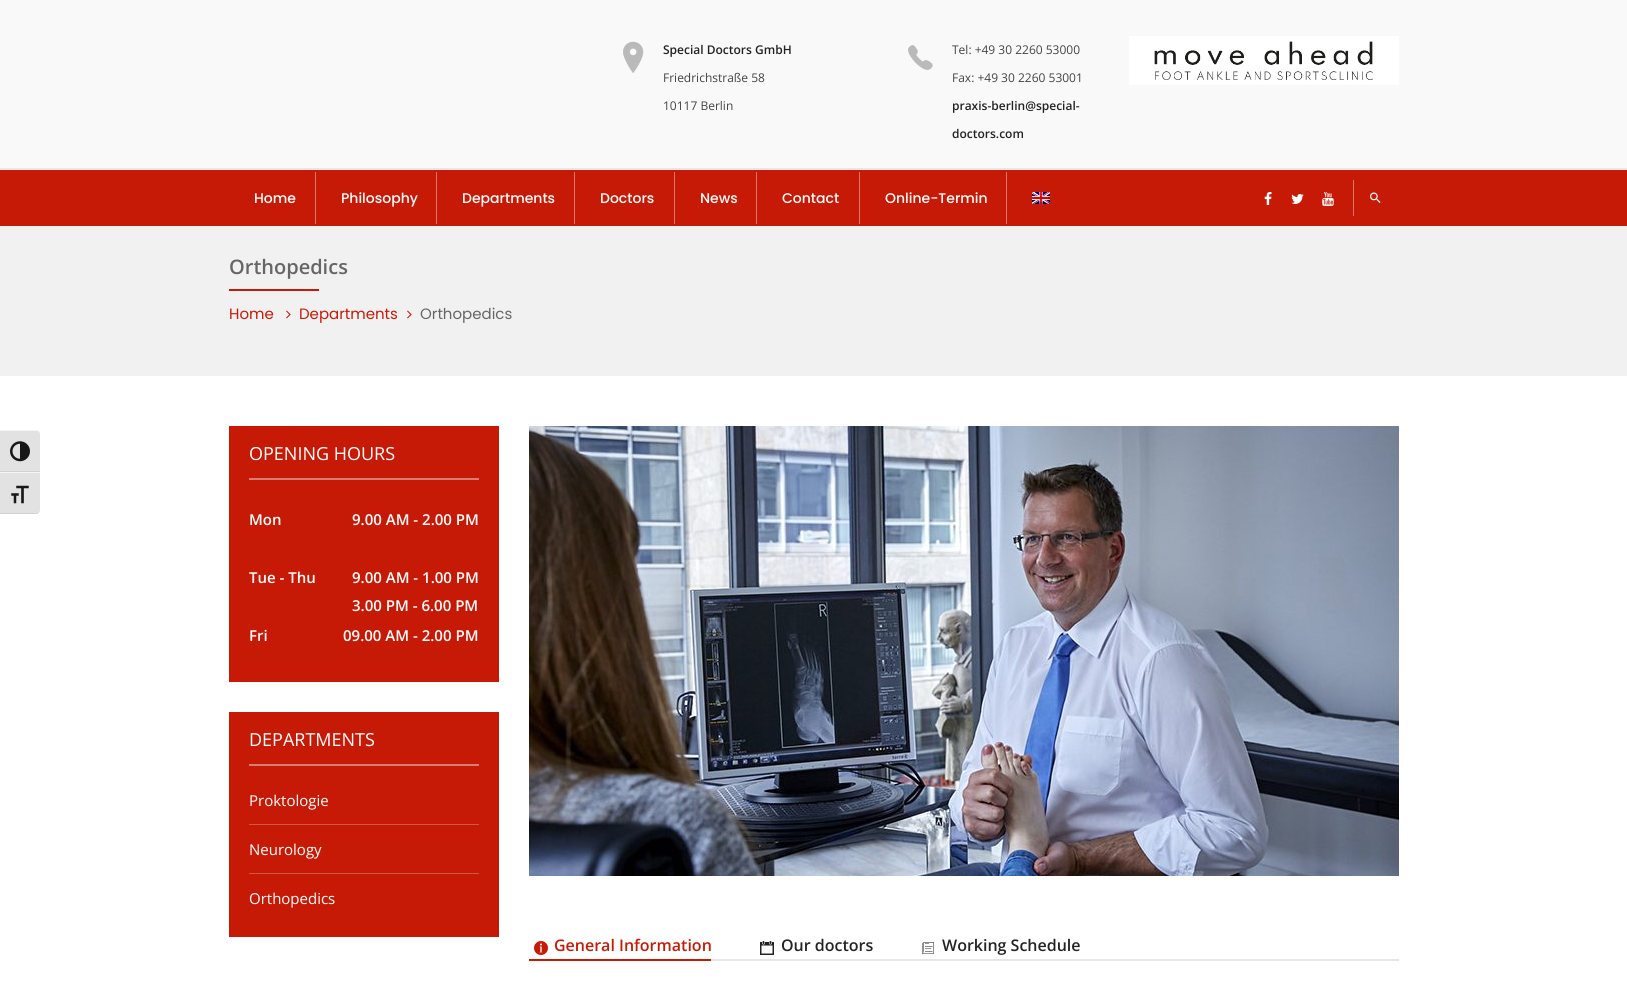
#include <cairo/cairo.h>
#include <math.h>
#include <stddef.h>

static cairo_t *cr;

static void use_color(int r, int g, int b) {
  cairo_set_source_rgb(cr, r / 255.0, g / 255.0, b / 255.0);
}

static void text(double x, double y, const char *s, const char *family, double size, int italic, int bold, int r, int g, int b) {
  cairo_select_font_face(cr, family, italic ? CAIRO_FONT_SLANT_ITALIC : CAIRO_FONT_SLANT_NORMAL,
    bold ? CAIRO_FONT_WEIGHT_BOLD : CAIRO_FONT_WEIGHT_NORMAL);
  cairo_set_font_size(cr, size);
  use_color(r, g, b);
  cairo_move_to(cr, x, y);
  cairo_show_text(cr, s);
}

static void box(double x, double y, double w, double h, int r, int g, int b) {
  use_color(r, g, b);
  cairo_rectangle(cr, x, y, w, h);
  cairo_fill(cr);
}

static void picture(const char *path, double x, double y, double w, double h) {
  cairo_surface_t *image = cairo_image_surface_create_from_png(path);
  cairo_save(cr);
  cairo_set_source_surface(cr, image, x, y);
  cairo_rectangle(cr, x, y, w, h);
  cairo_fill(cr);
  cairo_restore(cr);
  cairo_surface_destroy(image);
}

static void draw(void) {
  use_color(255, 255, 255);
  cairo_paint(cr);
  use_color(226, 226, 226);
  cairo_new_path(cr);
  cairo_move_to(cr, 0, 430);
  cairo_line_to(cr, 36, 430);
  cairo_curve_to(cr, 38, 430, 40, 432, 40, 434);
  cairo_line_to(cr, 40, 472);
  cairo_line_to(cr, 0, 472);
  cairo_close_path(cr);
  cairo_fill(cr);
  use_color(245, 245, 245);
  cairo_new_path(cr);
  cairo_move_to(cr, 0, 430);
  cairo_line_to(cr, 0, 431);
  cairo_line_to(cr, 36, 431);
  cairo_curve_to(cr, 38, 431, 40, 432, 40, 434);
  cairo_curve_to(cr, 40, 432, 38, 430, 36, 430);
  cairo_close_path(cr);
  cairo_fill(cr);
  box(0, 471, 40, 1, 210, 210, 210);
  picture("img_01.png", 10, 441, 20, 21);
  use_color(226, 226, 226);
  cairo_new_path(cr);
  cairo_move_to(cr, 0, 472);
  cairo_line_to(cr, 40, 472);
  cairo_line_to(cr, 40, 510);
  cairo_curve_to(cr, 40, 512, 38, 514, 36, 514);
  cairo_line_to(cr, 0, 514);
  cairo_close_path(cr);
  cairo_fill(cr);
  box(0, 472, 40, 1, 245, 245, 245);
  use_color(210, 210, 210);
  cairo_new_path(cr);
  cairo_move_to(cr, 0, 513);
  cairo_line_to(cr, 0, 514);
  cairo_line_to(cr, 36, 514);
  cairo_curve_to(cr, 38, 514, 40, 512, 40, 510);
  cairo_curve_to(cr, 40, 512, 38, 513, 36, 513);
  cairo_close_path(cr);
  cairo_fill(cr);
  picture("img_02.png", 11, 485, 18, 19);
  box(0, 0, 1627, 168, 249, 249, 249);
  box(0, 168, 1627, 2, 232, 232, 232);
  picture("img_03.png", 623, 41, 21, 32);
  picture("img_04.png", 908, 45, 25, 25);
  picture("img_05.png", 1129, 36, 270, 49);
  box(0, 170, 1627, 56, 199, 26, 6);
  box(315, 172, 1, 52, 221, 118, 106);
  box(436, 172, 1, 52, 221, 118, 106);
  box(574, 172, 1, 52, 221, 118, 106);
  box(674, 172, 1, 52, 221, 118, 106);
  box(756, 172, 1, 52, 221, 118, 106);
  box(859, 172, 1, 52, 221, 118, 106);
  box(1006, 172, 1, 52, 221, 118, 106);
  picture("img_06.png", 1032, 192, 18, 12);
  picture("img_07.png", 1264, 192, 8, 13);
  picture("img_08.png", 1291, 194, 13, 10);
  picture("img_09.png", 1322, 192, 12, 14);
  box(1353, 180, 1, 36, 221, 118, 106);
  picture("img_10.png", 1370, 192, 11, 11);
  box(0, 226, 1627, 150, 241, 241, 241);
  box(229, 289, 90, 2, 199, 26, 6);
  picture("img_11.png", 286, 310, 5, 9);
  picture("img_11.png", 407, 310, 5, 9);
  box(229, 426, 270, 256, 199, 26, 6);
  box(249, 478, 230, 2, 212, 126, 116);
  box(229, 712, 270, 225, 199, 26, 6);
  box(249, 764, 230, 2, 212, 126, 116);
  box(249, 824, 230, 1, 207, 86, 72);
  box(249, 873, 230, 1, 207, 86, 72);
  picture("img_12.png", 529, 426, 870, 450);
  box(711, 959, 688, 2, 230, 230, 230);
  picture("img_13.png", 534, 941, 14, 14);
  box(529, 959, 182, 2, 199, 26, 6);
  picture("img_14.png", 760, 941, 14, 14);
  picture("img_15.png", 922, 942, 12, 12);
  text(663, 54, "Special Doctors GmbH", "Open Sans SemiBold", 12, 0, 0, 35, 35, 35);
  text(663, 82, "Friedrichstraße 58", "Open Sans", 12, 0, 0, 68, 68, 68);
  text(663, 110, "10117 Berlin", "Open Sans", 12, 0, 0, 68, 68, 68);
  text(952, 54, "Tel: +49 30 2260 53000", "Open Sans", 12, 0, 0, 68, 68, 68);
  text(952, 82, "Fax: +49 30 2260 53001", "Open Sans", 12, 0, 0, 68, 68, 68);
  text(952, 110, "praxis-berlin@special-", "Open Sans SemiBold", 12, 0, 0, 35, 35, 35);
  text(952, 138, "doctors.com", "Open Sans SemiBold", 12, 0, 0, 35, 35, 35);
  text(254, 203, "Home", "Poppins Medium", 14, 0, 0, 255, 255, 255);
  text(341, 203, "Philosophy", "Poppins Medium", 14, 0, 0, 255, 255, 255);
  text(462, 203, "Departments", "Poppins Medium", 14, 0, 0, 255, 255, 255);
  text(600, 203, "Doctors", "Poppins Medium", 14, 0, 0, 255, 255, 255);
  text(700, 203, "News", "Poppins Medium", 14, 0, 0, 255, 255, 255);
  text(782, 203, "Contact", "Poppins Medium", 14, 0, 0, 255, 255, 255);
  text(885, 203, "Online-Termin", "Poppins Medium", 14, 0, 0, 255, 255, 255);
  text(229, 274, "Orthopedics", "Open Sans SemiBold", 20, 0, 0, 102, 102, 102);
  text(229, 319, "Home", "Poppins", 15, 0, 0, 199, 26, 6);
  text(299, 319, "Departments", "Poppins", 15, 0, 0, 199, 26, 6);
  text(420, 319, "Orthopedics", "Poppins", 15, 0, 0, 102, 102, 102);
  text(249, 460, "OPENING HOURS", "Open Sans", 18, 0, 0, 255, 255, 255);
  text(249, 525, "Mon", "Open Sans SemiBold", 15, 0, 0, 255, 255, 255);
  text(352, 525, "9.00 AM - 2.00 PM", "Open Sans SemiBold", 15, 0, 0, 255, 255, 255);
  text(249, 583, "Tue - Thu", "Open Sans SemiBold", 15, 0, 0, 255, 255, 255);
  text(352, 583, "9.00 AM - 1.00 PM", "Open Sans SemiBold", 15, 0, 0, 255, 255, 255);
  text(352, 611, "3.00 PM - 6.00 PM", "Open Sans SemiBold", 15, 0, 0, 255, 255, 255);
  text(249, 641, "Fri", "Open Sans SemiBold", 15, 0, 0, 255, 255, 255);
  text(343, 641, "09.00 AM - 2.00 PM", "Open Sans SemiBold", 15, 0, 0, 255, 255, 255);
  text(249, 746, "DEPARTMENTS", "Open Sans", 18, 0, 0, 255, 255, 255);
  text(249, 806, "Proktologie", "Open Sans", 15, 0, 0, 255, 255, 255);
  text(249, 855, "Neurology", "Open Sans", 15, 0, 0, 255, 255, 255);
  text(249, 904, "Orthopedics", "Open Sans", 15, 0, 0, 255, 255, 255);
  text(554, 951, "General Information", "Open Sans SemiBold", 16, 0, 0, 199, 26, 6);
  text(781, 951, "Our doctors", "Open Sans SemiBold", 16, 0, 0, 35, 35, 35);
  text(942, 951, "Working Schedule", "Open Sans SemiBold", 16, 0, 0, 35, 35, 35);
}

int main(void) {
  cairo_surface_t *surface = cairo_image_surface_create(CAIRO_FORMAT_RGB24, 1627, 1000);
  cr = cairo_create(surface);
  cairo_font_options_t *options = cairo_font_options_create();
  cairo_font_options_set_hint_metrics(options, CAIRO_HINT_METRICS_OFF);
  cairo_font_options_set_hint_style(options, CAIRO_HINT_STYLE_NONE);
  cairo_set_font_options(cr, options);
  cairo_set_miter_limit(cr, 4);
  draw();
  cairo_surface_write_to_png(surface, "out.png");
  cairo_font_options_destroy(options);
  cairo_destroy(cr);
  cairo_surface_destroy(surface);
  return 0;
}
